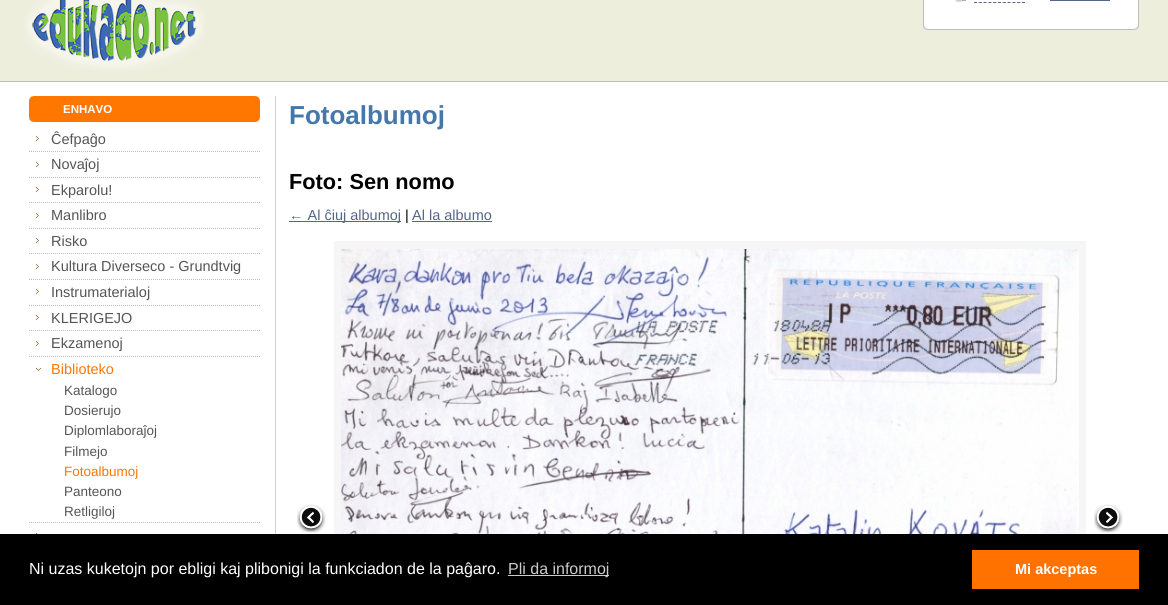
#include <cairo/cairo.h>
#include <math.h>
#include <stddef.h>

static cairo_t *cr;

static void use_color(int r, int g, int b) {
  cairo_set_source_rgb(cr, r / 255.0, g / 255.0, b / 255.0);
}

static void text(double x, double y, const char *s, const char *family, double size, int italic, int bold, int r, int g, int b) {
  cairo_select_font_face(cr, family, italic ? CAIRO_FONT_SLANT_ITALIC : CAIRO_FONT_SLANT_NORMAL,
    bold ? CAIRO_FONT_WEIGHT_BOLD : CAIRO_FONT_WEIGHT_NORMAL);
  cairo_set_font_size(cr, size);
  use_color(r, g, b);
  cairo_move_to(cr, x, y);
  cairo_show_text(cr, s);
}

static void box(double x, double y, double w, double h, int r, int g, int b) {
  use_color(r, g, b);
  cairo_rectangle(cr, x, y, w, h);
  cairo_fill(cr);
}

static void picture(const char *path, double x, double y, double w, double h) {
  cairo_surface_t *image = cairo_image_surface_create_from_png(path);
  cairo_save(cr);
  cairo_set_source_surface(cr, image, x, y);
  cairo_rectangle(cr, x, y, w, h);
  cairo_fill(cr);
  cairo_restore(cr);
  cairo_surface_destroy(image);
}

static void draw(void) {
  use_color(255, 255, 255);
  cairo_paint(cr);
  box(0, 0, 1168, 81, 238, 238, 221);
  box(0, 81, 1168, 1, 187, 187, 187);
  picture("img_01.png", 25, 0, 180, 70);
  box(924, 0, 214, 24, 255, 255, 255);
  box(1138, 0, 1, 24, 187, 187, 187);
  box(923, 0, 1, 24, 187, 187, 187);
  picture("img_02.png", 955, 0, 11, 3);
  box(1050, 0, 60, 1, 85, 102, 136);
  cairo_new_path(cr);
  cairo_move_to(cr, 974, 2.5);
  cairo_line_to(cr, 1025, 2.5);
  cairo_set_line_width(cr, 1);
  cairo_set_dash(cr, (double[]){3, 1.8}, 2, 0);
  cairo_stroke(cr);
  box(923, 24, 216, 5, 255, 255, 255);
  box(923, 29, 216, 1, 187, 187, 187);
  picture("img_03.png", 923, 24, 6, 6);
  picture("img_04.png", 1133, 24, 6, 6);
  box(275, 96, 1, 438, 209, 209, 209);
  box(29, 96, 231, 26, 255, 119, 0);
  picture("img_05.png", 29, 96, 5, 5);
  picture("img_06.png", 255, 96, 5, 5);
  picture("img_07.png", 29, 117, 5, 5);
  picture("img_08.png", 255, 117, 5, 5);
  cairo_new_path(cr);
  cairo_move_to(cr, 29, 151.5);
  cairo_line_to(cr, 260, 151.5);
  use_color(187, 187, 187);
  cairo_set_dash(cr, (double[]){1, 1}, 2, 0);
  cairo_stroke(cr);
  picture("img_09.png", 35, 135, 4, 7);
  cairo_new_path(cr);
  cairo_move_to(cr, 29, 177.5);
  cairo_line_to(cr, 260, 177.5);
  cairo_stroke(cr);
  picture("img_09.png", 35, 161, 4, 7);
  cairo_new_path(cr);
  cairo_move_to(cr, 29, 202.5);
  cairo_line_to(cr, 260, 202.5);
  cairo_stroke(cr);
  picture("img_09.png", 35, 186, 4, 7);
  cairo_new_path(cr);
  cairo_move_to(cr, 29, 228.5);
  cairo_line_to(cr, 260, 228.5);
  cairo_stroke(cr);
  picture("img_09.png", 35, 212, 4, 7);
  cairo_new_path(cr);
  cairo_move_to(cr, 29, 253.5);
  cairo_line_to(cr, 260, 253.5);
  cairo_stroke(cr);
  picture("img_09.png", 35, 237, 4, 7);
  cairo_new_path(cr);
  cairo_move_to(cr, 29, 279.5);
  cairo_line_to(cr, 260, 279.5);
  cairo_stroke(cr);
  picture("img_09.png", 35, 263, 4, 7);
  cairo_new_path(cr);
  cairo_move_to(cr, 29, 305.5);
  cairo_line_to(cr, 260, 305.5);
  cairo_stroke(cr);
  picture("img_09.png", 35, 288, 4, 7);
  cairo_new_path(cr);
  cairo_move_to(cr, 29, 330.5);
  cairo_line_to(cr, 260, 330.5);
  cairo_stroke(cr);
  picture("img_09.png", 35, 314, 4, 7);
  cairo_new_path(cr);
  cairo_move_to(cr, 29, 356.5);
  cairo_line_to(cr, 260, 356.5);
  cairo_stroke(cr);
  picture("img_09.png", 35, 340, 4, 7);
  cairo_new_path(cr);
  cairo_move_to(cr, 29, 522.5);
  cairo_line_to(cr, 260, 522.5);
  cairo_stroke(cr);
  picture("img_10.png", 35, 367, 7, 4);
  picture("img_11.png", 35, 532, 4, 2);
  box(289, 221, 112, 1, 85, 102, 136);
  box(412, 221, 80, 1, 85, 102, 136);
  picture("img_12.png", 297, 504, 29, 29);
  box(334, 241, 752, 293, 246, 246, 246);
  picture("img_13.png", 341, 249, 738, 285);
  picture("img_14.png", 1094, 504, 29, 29);
  box(0, 534, 1168, 71, 0, 0, 0);
  box(508, 575, 101, 1, 204, 204, 204);
  box(972, 550, 167, 39, 255, 114, 0);
  text(63, 113, "ENHAVO", "Liberation Sans", 11.5, 0, 1, 255, 255, 255);
  text(51, 144, "Ĉefpaĝo", "Liberation Sans", 14.5, 0, 0, 85, 85, 85);
  text(51, 169, "Novaĵoj", "Liberation Sans", 14.5, 0, 0, 85, 85, 85);
  text(51, 195, "Ekparolu!", "Liberation Sans", 14.5, 0, 0, 85, 85, 85);
  text(51, 220, "Manlibro", "Liberation Sans", 14.5, 0, 0, 85, 85, 85);
  text(51, 246, "Risko", "Liberation Sans", 14.5, 0, 0, 85, 85, 85);
  text(51, 271, "Kultura Diverseco - Grundtvig", "Liberation Sans", 14.5, 0, 0, 85, 85, 85);
  text(51, 297, "Instrumaterialoj", "Liberation Sans", 14.5, 0, 0, 85, 85, 85);
  text(51, 323, "KLERIGEJO", "Liberation Sans", 14.5, 0, 0, 85, 85, 85);
  text(51, 348, "Ekzamenoj", "Liberation Sans", 14.5, 0, 0, 85, 85, 85);
  text(51, 374, "Biblioteko", "Liberation Sans", 14.5, 0, 0, 255, 119, 0);
  text(64, 395, "Katalogo", "Liberation Sans", 13.5, 0, 0, 85, 85, 85);
  text(64, 415, "Dosierujo", "Liberation Sans", 13.5, 0, 0, 85, 85, 85);
  text(64, 435, "Diplomlaboraĵoj", "Liberation Sans", 13.5, 0, 0, 85, 85, 85);
  text(64, 456, "Filmejo", "Liberation Sans", 13.5, 0, 0, 85, 85, 85);
  text(64, 476, "Fotoalbumoj", "Liberation Sans", 13.5, 0, 0, 255, 119, 0);
  text(64, 496, "Panteono", "Liberation Sans", 13.5, 0, 0, 85, 85, 85);
  text(64, 516, "Retligiloj", "Liberation Sans", 13.5, 0, 0, 85, 85, 85);
  text(289, 124, "Fotoalbumoj", "Liberation Sans", 26, 0, 1, 68, 119, 170);
  text(289, 189, "Foto: Sen nomo", "Liberation Sans", 21.75, 0, 1, 0, 0, 0);
  text(289, 220, "← Al ĉiuj albumoj", "Liberation Sans", 14.5, 0, 0, 85, 102, 136);
  text(405, 220, "|", "Liberation Sans", 14.5, 0, 0, 0, 0, 0);
  text(412, 220, "Al la albumo", "Liberation Sans", 14.5, 0, 0, 85, 102, 136);
  text(29, 574, "Ni uzas kuketojn por ebligi kaj plibonigi la funkciadon de la paĝaro.", "Liberation Sans", 16, 0, 0, 255, 255, 255);
  text(508, 574, "Pli da informoj", "Liberation Sans", 16, 0, 0, 204, 204, 204);
  text(1015, 574, "Mi akceptas", "Liberation Sans", 14.5, 0, 1, 255, 255, 255);
}

int main(void) {
  cairo_surface_t *surface = cairo_image_surface_create(CAIRO_FORMAT_RGB24, 1168, 605);
  cr = cairo_create(surface);
  cairo_font_options_t *options = cairo_font_options_create();
  cairo_font_options_set_hint_metrics(options, CAIRO_HINT_METRICS_OFF);
  cairo_font_options_set_hint_style(options, CAIRO_HINT_STYLE_NONE);
  cairo_set_font_options(cr, options);
  cairo_set_miter_limit(cr, 4);
  draw();
  cairo_surface_write_to_png(surface, "out.png");
  cairo_font_options_destroy(options);
  cairo_destroy(cr);
  cairo_surface_destroy(surface);
  return 0;
}
